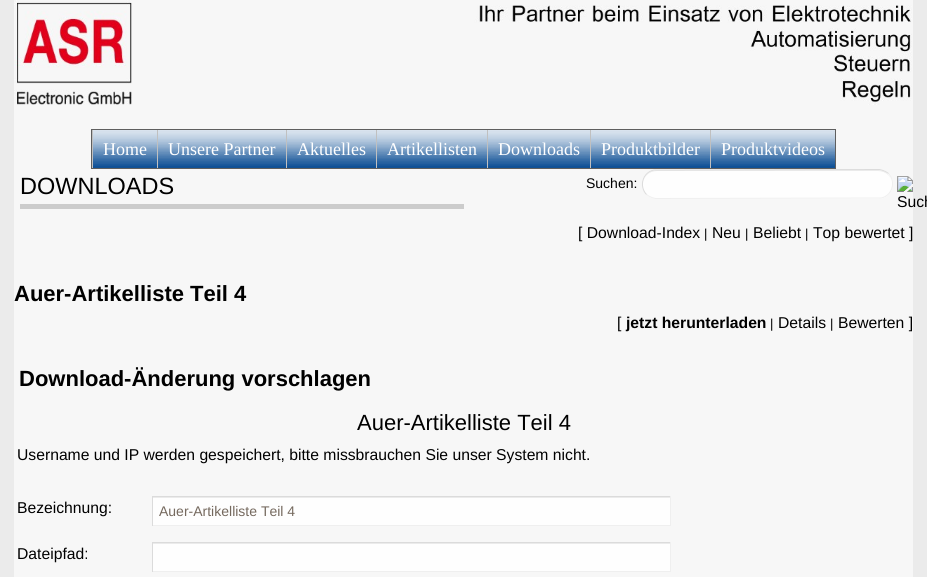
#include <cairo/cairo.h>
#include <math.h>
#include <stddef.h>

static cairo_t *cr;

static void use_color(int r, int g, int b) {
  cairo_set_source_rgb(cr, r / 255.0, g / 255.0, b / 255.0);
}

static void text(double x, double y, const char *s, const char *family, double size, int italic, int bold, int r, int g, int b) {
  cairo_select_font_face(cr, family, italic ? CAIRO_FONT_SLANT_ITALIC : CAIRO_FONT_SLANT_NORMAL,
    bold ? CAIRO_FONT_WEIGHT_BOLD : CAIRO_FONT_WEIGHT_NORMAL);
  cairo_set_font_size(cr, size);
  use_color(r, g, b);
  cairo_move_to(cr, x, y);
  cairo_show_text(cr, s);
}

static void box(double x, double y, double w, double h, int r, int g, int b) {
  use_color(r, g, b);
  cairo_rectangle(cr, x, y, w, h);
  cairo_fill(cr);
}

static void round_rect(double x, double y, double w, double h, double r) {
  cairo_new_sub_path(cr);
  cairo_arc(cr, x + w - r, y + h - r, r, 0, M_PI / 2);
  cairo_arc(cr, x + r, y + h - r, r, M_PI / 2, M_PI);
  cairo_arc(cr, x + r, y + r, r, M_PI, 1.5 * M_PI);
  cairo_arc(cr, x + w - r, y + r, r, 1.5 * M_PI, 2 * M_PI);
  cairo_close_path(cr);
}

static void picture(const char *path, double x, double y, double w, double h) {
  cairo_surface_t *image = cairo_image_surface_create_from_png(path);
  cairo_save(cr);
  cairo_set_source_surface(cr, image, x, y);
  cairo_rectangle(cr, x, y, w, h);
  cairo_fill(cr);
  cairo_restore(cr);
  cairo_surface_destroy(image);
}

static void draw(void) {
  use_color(235, 235, 235);
  cairo_paint(cr);
  box(14, 0, 899, 577, 247, 247, 247);
  picture("img_01.png", 14, 0, 898, 105);
  cairo_rectangle(cr, 91.5, 129.5, 744, 39);
  use_color(95, 95, 95);
  cairo_set_line_width(cr, 1);
  cairo_stroke(cr);
  box(93, 130, 64, 38, 16, 81, 150);
  picture("img_02.png", 93, 130, 64, 36);
  box(92, 130, 1, 38, 192, 192, 192);
  box(158, 130, 128, 38, 16, 81, 150);
  picture("img_03.png", 158, 130, 128, 36);
  box(157, 130, 1, 38, 192, 192, 192);
  box(287, 130, 89, 38, 16, 81, 150);
  picture("img_04.png", 287, 130, 89, 36);
  box(286, 130, 1, 38, 192, 192, 192);
  box(377, 130, 110, 38, 16, 81, 150);
  picture("img_05.png", 377, 130, 110, 36);
  box(376, 130, 1, 38, 192, 192, 192);
  box(488, 130, 102, 38, 16, 81, 150);
  picture("img_06.png", 488, 130, 102, 36);
  box(487, 130, 1, 38, 192, 192, 192);
  box(591, 130, 119, 38, 16, 81, 150);
  picture("img_07.png", 591, 130, 119, 36);
  box(590, 130, 1, 38, 192, 192, 192);
  box(711, 130, 124, 38, 16, 81, 150);
  picture("img_08.png", 711, 130, 124, 36);
  box(710, 130, 1, 38, 192, 192, 192);
  box(20, 204, 444, 5, 204, 204, 204);
  use_color(254, 254, 254);
  round_rect(642, 169, 251, 30, 15);
  cairo_fill(cr);
  use_color(235, 235, 235);
  cairo_new_path(cr);
  cairo_move_to(cr, 657, 171);
  cairo_line_to(cr, 878, 171);
  cairo_curve_to(cr, 886, 171, 892, 177, 892, 184);
  cairo_curve_to(cr, 892, 177, 886, 170, 878, 170);
  cairo_line_to(cr, 657, 170);
  cairo_curve_to(cr, 649, 170, 643, 177, 643, 184);
  cairo_curve_to(cr, 643, 177, 649, 171, 657, 171);
  cairo_close_path(cr);
  cairo_fill(cr);
  cairo_new_path(cr);
  cairo_move_to(cr, 888.5, 173.5);
  cairo_curve_to(cr, 896.5, 182, 892, 196, 881, 198);
  cairo_line_to(cr, 655.5, 198.5);
  cairo_curve_to(cr, 652.5, 198, 649, 196.5, 646.5, 194.5);
  use_color(239, 239, 239);
  cairo_stroke(cr);
  cairo_new_path(cr);
  cairo_move_to(cr, 646.5, 194.5);
  cairo_curve_to(cr, 638.5, 186, 643, 172, 654, 170);
  cairo_line_to(cr, 879.5, 169.5);
  cairo_curve_to(cr, 882.5, 170, 886, 171.5, 888.5, 173.5);
  use_color(219, 219, 219);
  cairo_stroke(cr);
  picture("img_09.png", 897, 176, 16, 16);
  box(153, 498, 517, 27, 254, 254, 254);
  box(153, 497, 517, 1, 235, 235, 235);
  box(152, 496, 519, 1, 219, 219, 219);
  box(670, 496, 1, 30, 239, 239, 239);
  box(152, 525, 519, 1, 239, 239, 239);
  box(152, 496, 1, 30, 219, 219, 219);
  box(153, 544, 517, 27, 254, 254, 254);
  box(153, 543, 517, 1, 235, 235, 235);
  box(152, 542, 519, 1, 219, 219, 219);
  box(670, 542, 1, 30, 239, 239, 239);
  box(152, 571, 519, 1, 239, 239, 239);
  box(152, 542, 1, 30, 219, 219, 219);
  text(103, 155, "Home", "Liberation Serif", 18, 0, 0, 255, 255, 255);
  text(168, 155, "Unsere Partner", "Liberation Serif", 18, 0, 0, 255, 255, 255);
  text(297, 155, "Aktuelles", "Liberation Serif", 18, 0, 0, 255, 255, 255);
  text(387, 155, "Artikellisten", "Liberation Serif", 18, 0, 0, 255, 255, 255);
  text(498, 155, "Downloads", "Liberation Serif", 18, 0, 0, 255, 255, 255);
  text(601, 155, "Produktbilder", "Liberation Serif", 18, 0, 0, 255, 255, 255);
  text(721, 155, "Produktvideos", "Liberation Serif", 18, 0, 0, 255, 255, 255);
  text(20, 194, "DOWNLOADS", "Liberation Sans", 23.5, 0, 0, 0, 0, 0);
  text(586, 188, "Suchen:", "Liberation Sans", 14, 0, 0, 0, 0, 0);
  text(897, 207, "Such", "Liberation Sans", 15.7, 0, 0, 0, 0, 0);
  text(578, 238, "[ Download-Index", "Liberation Sans", 15.7, 0, 0, 0, 0, 0);
  text(704, 238, "|", "Liberation Sans", 13, 0, 0, 0, 0, 0);
  text(712, 238, "Neu", "Liberation Sans", 15.7, 0, 0, 0, 0, 0);
  text(745, 238, "|", "Liberation Sans", 13, 0, 0, 0, 0, 0);
  text(753, 238, "Beliebt", "Liberation Sans", 15.7, 0, 0, 0, 0, 0);
  text(805, 238, "|", "Liberation Sans", 13, 0, 0, 0, 0, 0);
  text(813, 238, "Top bewertet ]", "Liberation Sans", 15.7, 0, 0, 0, 0, 0);
  text(14, 301, "Auer-Artikelliste Teil 4", "Liberation Sans", 22, 0, 1, 0, 0, 0);
  text(617, 328, "[", "Liberation Sans", 15.7, 0, 0, 0, 0, 0);
  text(626, 328, "jetzt herunterladen", "Liberation Sans", 15.7, 0, 1, 0, 0, 0);
  text(770, 328, "|", "Liberation Sans", 13, 0, 0, 0, 0, 0);
  text(778, 328, "Details", "Liberation Sans", 15.7, 0, 0, 0, 0, 0);
  text(830, 328, "|", "Liberation Sans", 13, 0, 0, 0, 0, 0);
  text(838, 328, "Bewerten ]", "Liberation Sans", 15.7, 0, 0, 0, 0, 0);
  text(19, 386, "Download-Änderung vorschlagen", "Liberation Sans", 22, 0, 1, 0, 0, 0);
  text(357, 430, "Auer-Artikelliste Teil 4", "Liberation Sans", 22, 0, 0, 0, 0, 0);
  text(17, 460, "Username und IP werden gespeichert, bitte missbrauchen Sie unser System nicht.", "Liberation Sans", 15.7, 0, 0, 0, 0, 0);
  text(17, 513, "Bezeichnung:", "Liberation Sans", 15.7, 0, 0, 0, 0, 0);
  text(159, 516, "Auer-Artikelliste Teil 4", "Liberation Sans", 14, 0, 0, 117, 105, 94);
  text(17, 559, "Dateipfad:", "Liberation Sans", 15.7, 0, 0, 0, 0, 0);
}

int main(void) {
  cairo_surface_t *surface = cairo_image_surface_create(CAIRO_FORMAT_RGB24, 927, 577);
  cr = cairo_create(surface);
  cairo_font_options_t *options = cairo_font_options_create();
  cairo_font_options_set_hint_metrics(options, CAIRO_HINT_METRICS_OFF);
  cairo_font_options_set_hint_style(options, CAIRO_HINT_STYLE_NONE);
  cairo_set_font_options(cr, options);
  cairo_set_miter_limit(cr, 4);
  draw();
  cairo_surface_write_to_png(surface, "out.png");
  cairo_font_options_destroy(options);
  cairo_destroy(cr);
  cairo_surface_destroy(surface);
  return 0;
}
